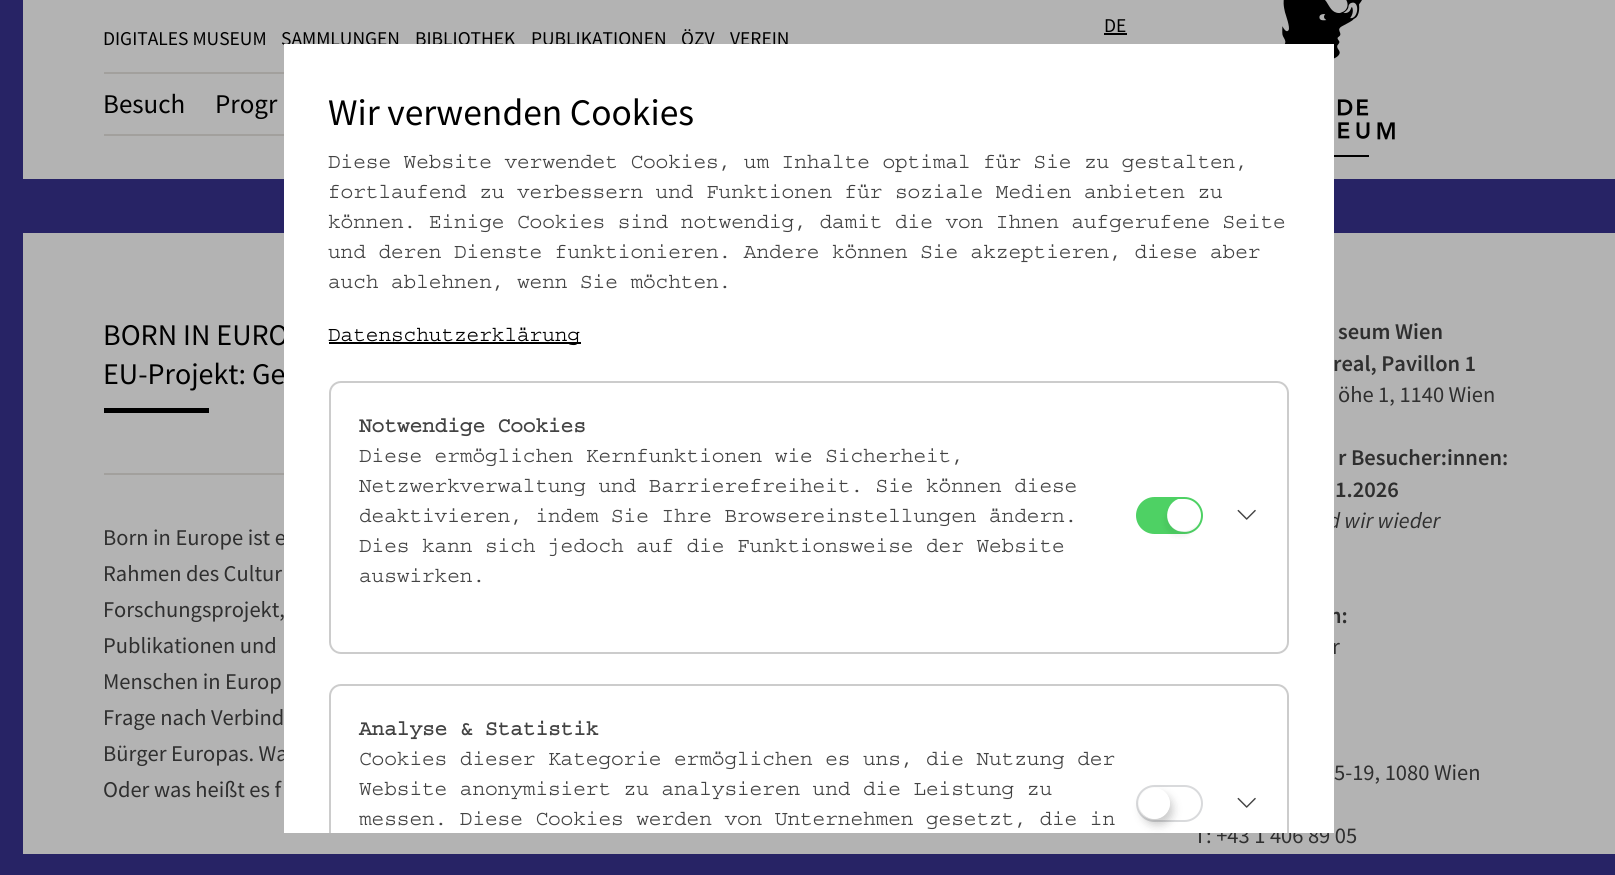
#include <cairo/cairo.h>
#include <math.h>
#include <stddef.h>

static cairo_t *cr;

static void use_color(int r, int g, int b) {
  cairo_set_source_rgb(cr, r / 255.0, g / 255.0, b / 255.0);
}

static void text(double x, double y, const char *s, const char *family, double size, int italic, int bold, int r, int g, int b) {
  cairo_select_font_face(cr, family, italic ? CAIRO_FONT_SLANT_ITALIC : CAIRO_FONT_SLANT_NORMAL,
    bold ? CAIRO_FONT_WEIGHT_BOLD : CAIRO_FONT_WEIGHT_NORMAL);
  cairo_set_font_size(cr, size);
  use_color(r, g, b);
  cairo_move_to(cr, x, y);
  cairo_show_text(cr, s);
}

static void box(double x, double y, double w, double h, int r, int g, int b) {
  use_color(r, g, b);
  cairo_rectangle(cr, x, y, w, h);
  cairo_fill(cr);
}

static void round_rect(double x, double y, double w, double h, double r) {
  cairo_new_sub_path(cr);
  cairo_arc(cr, x + w - r, y + h - r, r, 0, M_PI / 2);
  cairo_arc(cr, x + r, y + h - r, r, M_PI / 2, M_PI);
  cairo_arc(cr, x + r, y + r, r, M_PI, 1.5 * M_PI);
  cairo_arc(cr, x + w - r, y + r, r, 1.5 * M_PI, 2 * M_PI);
  cairo_close_path(cr);
}

static void shadow(double x, double y, double w, double h, double r, double blur, double alpha) {
  cairo_push_group_with_content(cr, CAIRO_CONTENT_ALPHA);
  cairo_set_operator(cr, CAIRO_OPERATOR_SOURCE);
  for (int i = 15; i >= -15 && fmin(w, h) + blur * i / 3 > 0; i -= 2) {
    double e = blur * i / 6;
    cairo_set_source_rgba(cr, 0, 0, 0, alpha * erfc((i - 1) / 8.5) / 2);
    round_rect(x - e, y - e, w + 2 * e, h + 2 * e, fmax(0, fmin(r + e + blur * .6, fmin(w, h) / 2 + e)));
    cairo_fill(cr);
  }
  cairo_pattern_t *soft = cairo_pop_group(cr);
  cairo_mask(cr, soft);
  cairo_pattern_destroy(soft);
}

static void picture(const char *path, double x, double y, double w, double h) {
  cairo_surface_t *image = cairo_image_surface_create_from_png(path);
  cairo_save(cr);
  cairo_set_source_surface(cr, image, x, y);
  cairo_rectangle(cr, x, y, w, h);
  cairo_fill(cr);
  cairo_restore(cr);
  cairo_surface_destroy(image);
}

static void draw(void) {
  use_color(179, 179, 179);
  cairo_paint(cr);
  box(0, 0, 23, 875, 39, 35, 101);
  box(23, 179, 1592, 54, 39, 35, 101);
  box(23, 854, 1592, 21, 39, 35, 101);
  box(1104, 33, 23, 2, 0, 0, 0);
  box(104, 72, 180, 2, 162, 160, 157);
  box(104, 134, 180, 2, 162, 160, 157);
  picture("img_01.png", 1282, 0, 113, 157);
  box(104, 473, 180, 2, 162, 160, 157);
  box(104, 408, 105, 5, 0, 0, 0);
  text(1104, 32, "DE", "Source Sans Pro", 19.5, 0, 0, 0, 0, 0);
  text(103, 45, "DIGITALES MUSEUM", "Source Sans Pro", 19.5, 0, 0, 0, 0, 0);
  text(281, 45, "SAMMLUNGEN", "Source Sans Pro", 19.5, 0, 0, 0, 0, 0);
  text(415, 45, "BIBLIOTHEK", "Source Sans Pro", 19.5, 0, 0, 0, 0, 0);
  text(531, 45, "PUBLIKATIONEN", "Source Sans Pro", 19.5, 0, 0, 0, 0, 0);
  text(681, 45, "ÖZV", "Source Sans Pro", 19.5, 0, 0, 0, 0, 0);
  text(730, 45, "VEREIN", "Source Sans Pro", 19.5, 0, 0, 0, 0, 0);
  text(103, 113, "Besuch", "Source Sans Pro", 27, 0, 0, 0, 0, 0);
  text(215, 113, "Progr", "Source Sans Pro", 27, 0, 0, 0, 0, 0);
  text(103, 345, "BORN IN EURO", "Source Sans Pro", 30, 0, 0, 0, 0, 0);
  text(103, 384, "EU-Projekt: Ge", "Source Sans Pro", 30, 0, 0, 0, 0, 0);
  text(103, 545, "Born in Europe ist e", "Source Sans Pro", 22.5, 0, 0, 47, 47, 47);
  text(103, 581, "Rahmen des Cultur", "Source Sans Pro", 22.5, 0, 0, 47, 47, 47);
  text(103, 617, "Forschungsprojekt,", "Source Sans Pro", 22.5, 0, 0, 47, 47, 47);
  text(103, 653, "Publikationen und", "Source Sans Pro", 22.5, 0, 0, 47, 47, 47);
  text(103, 689, "Menschen in Europ", "Source Sans Pro", 22.5, 0, 0, 47, 47, 47);
  text(103, 725, "Frage nach Verbind", "Source Sans Pro", 22.5, 0, 0, 47, 47, 47);
  text(103, 761, "Bürger Europas. Wa", "Source Sans Pro", 22.5, 0, 0, 47, 47, 47);
  text(103, 797, "Oder was heißt es f", "Source Sans Pro", 22.5, 0, 0, 47, 47, 47);
  text(1338, 339, "seum Wien", "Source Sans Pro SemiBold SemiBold", 22.5, 0, 0, 47, 47, 47);
  text(1333, 371, "real, Pavillon 1", "Source Sans Pro SemiBold SemiBold", 22.5, 0, 0, 47, 47, 47);
  text(1338, 402, "öhe 1, 1140 Wien", "Source Sans Pro", 22.5, 0, 0, 47, 47, 47);
  text(1338, 465, "r Besucher:innen:", "Source Sans Pro SemiBold SemiBold", 22.5, 0, 0, 47, 47, 47);
  text(1335, 497, "1.2026", "Source Sans Pro SemiBold SemiBold", 22.5, 0, 0, 47, 47, 47);
  text(1328, 528, "d wir wieder", "Source Sans Pro", 22.5, 1, 0, 47, 47, 47);
  text(1329, 623, "n:", "Source Sans Pro SemiBold SemiBold", 22.5, 0, 0, 47, 47, 47);
  text(1332, 654, "r", "Source Sans Pro", 22.5, 0, 0, 47, 47, 47);
  text(1334, 780, "5-19, 1080 Wien", "Source Sans Pro", 22.5, 0, 0, 47, 47, 47);
  text(1194, 843, "T: +43 1 406 89 05", "Source Sans Pro", 22.5, 0, 0, 47, 47, 47);
  box(284, 44, 1050, 789, 255, 255, 255);
  cairo_save(cr);
  cairo_rectangle(cr, 284, 44, 1050, 789);
  cairo_clip(cr);
  round_rect(330, 685, 958, 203, 11);
  use_color(204, 204, 204);
  cairo_stroke(cr);
  cairo_restore(cr);
  round_rect(1137, 786, 65, 35, 17.5);
  use_color(217, 218, 220);
  cairo_stroke(cr);
  cairo_save(cr);
  cairo_set_fill_rule(cr, CAIRO_FILL_RULE_EVEN_ODD);
  cairo_new_path(cr);
  cairo_move_to(cr, 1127, 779);
  cairo_line_to(cr, 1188, 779);
  cairo_line_to(cr, 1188, 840);
  cairo_line_to(cr, 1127, 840);
  cairo_close_path(cr);
  cairo_move_to(cr, 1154.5, 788);
  cairo_curve_to(cr, 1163, 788, 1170, 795, 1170, 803.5);
  cairo_curve_to(cr, 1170, 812, 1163, 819, 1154.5, 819);
  cairo_curve_to(cr, 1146, 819, 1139, 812, 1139, 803.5);
  cairo_curve_to(cr, 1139, 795, 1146, 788, 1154.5, 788);
  cairo_close_path(cr);
  cairo_clip(cr);
  use_color(0, 0, 0);
  shadow(1142, 794, 31, 31, 15.5, 4.5, 0.2);
  cairo_restore(cr);
  round_rect(330, 382, 958, 271, 11);
  use_color(204, 204, 204);
  cairo_stroke(cr);
  use_color(78, 209, 100);
  cairo_new_path(cr);
  cairo_move_to(cr, 1154, 498);
  cairo_curve_to(cr, 1136, 498, 1130, 524, 1148, 532);
  cairo_curve_to(cr, 1154, 534, 1163, 533, 1170, 533);
  cairo_curve_to(cr, 1176, 533, 1184, 534, 1190, 532);
  cairo_curve_to(cr, 1186, 532, 1182, 532, 1178, 531);
  cairo_curve_to(cr, 1160, 524, 1166, 498, 1184, 498);
  cairo_close_path(cr);
  cairo_fill(cr);
  round_rect(1137, 498, 65, 35, 17.5);
  cairo_stroke(cr);
  cairo_save(cr);
  cairo_set_fill_rule(cr, CAIRO_FILL_RULE_EVEN_ODD);
  cairo_new_path(cr);
  cairo_move_to(cr, 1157, 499);
  cairo_line_to(cr, 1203, 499);
  cairo_line_to(cr, 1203, 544);
  cairo_line_to(cr, 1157, 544);
  cairo_close_path(cr);
  cairo_move_to(cr, 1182.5, 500);
  cairo_line_to(cr, 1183.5, 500);
  cairo_curve_to(cr, 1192, 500, 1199, 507, 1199, 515.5);
  cairo_curve_to(cr, 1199, 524, 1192, 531, 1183.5, 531);
  cairo_line_to(cr, 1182.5, 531);
  cairo_curve_to(cr, 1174, 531, 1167, 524, 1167, 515.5);
  cairo_curve_to(cr, 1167, 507, 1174, 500, 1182.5, 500);
  cairo_close_path(cr);
  cairo_clip(cr);
  use_color(0, 0, 0);
  shadow(1164, 506, 32, 31, 15.5, 2, 0.05);
  cairo_restore(cr);
  picture("img_02.png", 1237, 797, 19, 11);
  text(359, 825, "messen. Diese Cookies werden von Unternehmen gesetzt, die in", "Courier", 21, 0, 0, 67, 67, 67);
  text(359, 795, "Website anonymisiert zu analysieren und die Leistung zu", "Courier", 21, 0, 0, 67, 67, 67);
  text(359, 765, "Cookies dieser Kategorie ermöglichen es uns, die Nutzung der", "Courier", 21, 0, 0, 67, 67, 67);
  text(359, 735, "Analyse & Statistik", "Courier", 21, 0, 1, 67, 67, 67);
  picture("img_02.png", 1237, 509, 19, 11);
  text(359, 582, "auswirken.", "Courier", 21, 0, 0, 67, 67, 67);
  text(359, 552, "Dies kann sich jedoch auf die Funktionsweise der Website", "Courier", 21, 0, 0, 67, 67, 67);
  text(359, 522, "deaktivieren, indem Sie Ihre Browsereinstellungen ändern.", "Courier", 21, 0, 0, 67, 67, 67);
  text(359, 492, "Netzwerkverwaltung und Barrierefreiheit. Sie können diese", "Courier", 21, 0, 0, 67, 67, 67);
  text(359, 462, "Diese ermöglichen Kernfunktionen wie Sicherheit,", "Courier", 21, 0, 0, 67, 67, 67);
  text(359, 432, "Notwendige Cookies", "Courier", 21, 0, 1, 67, 67, 67);
  box(329, 342, 252, 2, 0, 0, 0);
  text(328, 341, "Datenschutzerklärung", "Courier", 21, 0, 0, 0, 0, 0);
  text(328, 288, "auch ablehnen, wenn Sie möchten.", "Courier", 21, 0, 0, 67, 67, 67);
  text(328, 258, "und deren Dienste funktionieren. Andere können Sie akzeptieren, diese aber", "Courier", 21, 0, 0, 67, 67, 67);
  text(328, 228, "können. Einige Cookies sind notwendig, damit die von Ihnen aufgerufene Seite", "Courier", 21, 0, 0, 67, 67, 67);
  text(328, 198, "fortlaufend zu verbessern und Funktionen für soziale Medien anbieten zu", "Courier", 21, 0, 0, 67, 67, 67);
  text(328, 168, "Diese Website verwendet Cookies, um Inhalte optimal für Sie zu gestalten,", "Courier", 21, 0, 0, 67, 67, 67);
  text(328, 125, "Wir verwenden Cookies", "Source Sans Pro", 37.5, 0, 0, 0, 0, 0);
}

int main(void) {
  cairo_surface_t *surface = cairo_image_surface_create(CAIRO_FORMAT_RGB24, 1615, 875);
  cr = cairo_create(surface);
  cairo_font_options_t *options = cairo_font_options_create();
  cairo_font_options_set_hint_metrics(options, CAIRO_HINT_METRICS_OFF);
  cairo_font_options_set_hint_style(options, CAIRO_HINT_STYLE_NONE);
  cairo_set_font_options(cr, options);
  cairo_set_miter_limit(cr, 4);
  draw();
  cairo_surface_write_to_png(surface, "out.png");
  cairo_font_options_destroy(options);
  cairo_destroy(cr);
  cairo_surface_destroy(surface);
  return 0;
}
